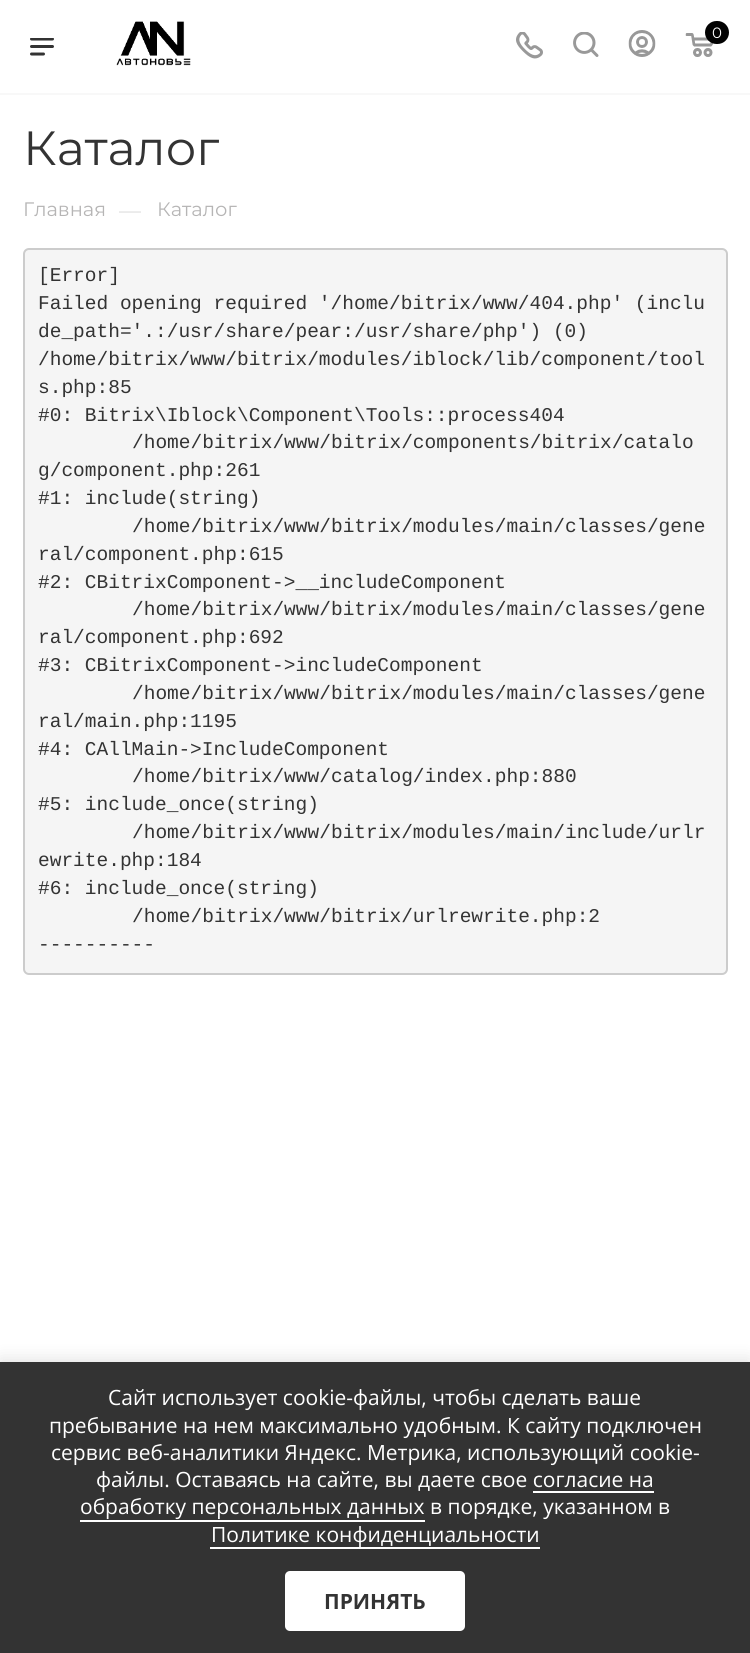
#include <cairo/cairo.h>
#include <math.h>
#include <stddef.h>

static cairo_t *cr;

static void use_color(int r, int g, int b) {
  cairo_set_source_rgb(cr, r / 255.0, g / 255.0, b / 255.0);
}

static void text(double x, double y, const char *s, const char *family, double size, int italic, int bold, int r, int g, int b) {
  cairo_select_font_face(cr, family, italic ? CAIRO_FONT_SLANT_ITALIC : CAIRO_FONT_SLANT_NORMAL,
    bold ? CAIRO_FONT_WEIGHT_BOLD : CAIRO_FONT_WEIGHT_NORMAL);
  cairo_set_font_size(cr, size);
  use_color(r, g, b);
  cairo_move_to(cr, x, y);
  cairo_show_text(cr, s);
}

static void box(double x, double y, double w, double h, int r, int g, int b) {
  use_color(r, g, b);
  cairo_rectangle(cr, x, y, w, h);
  cairo_fill(cr);
}

static void round_rect(double x, double y, double w, double h, double r) {
  cairo_new_sub_path(cr);
  cairo_arc(cr, x + w - r, y + h - r, r, 0, M_PI / 2);
  cairo_arc(cr, x + r, y + h - r, r, M_PI / 2, M_PI);
  cairo_arc(cr, x + r, y + r, r, M_PI, 1.5 * M_PI);
  cairo_arc(cr, x + w - r, y + r, r, 1.5 * M_PI, 2 * M_PI);
  cairo_close_path(cr);
}

static void shadow(double x, double y, double w, double h, double r, double blur, double alpha) {
  cairo_push_group_with_content(cr, CAIRO_CONTENT_ALPHA);
  cairo_set_operator(cr, CAIRO_OPERATOR_SOURCE);
  for (int i = 15; i >= -15 && fmin(w, h) + blur * i / 3 > 0; i -= 2) {
    double e = blur * i / 6;
    cairo_set_source_rgba(cr, 0, 0, 0, alpha * erfc((i - 1) / 8.5) / 2);
    round_rect(x - e, y - e, w + 2 * e, h + 2 * e, fmax(0, fmin(r + e + blur * .6, fmin(w, h) / 2 + e)));
    cairo_fill(cr);
  }
  cairo_pattern_t *soft = cairo_pop_group(cr);
  cairo_mask(cr, soft);
  cairo_pattern_destroy(soft);
}

static void picture(const char *path, double x, double y, double w, double h) {
  cairo_surface_t *image = cairo_image_surface_create_from_png(path);
  cairo_save(cr);
  cairo_set_source_surface(cr, image, x, y);
  cairo_rectangle(cr, x, y, w, h);
  cairo_fill(cr);
  cairo_restore(cr);
  cairo_surface_destroy(image);
}

static void draw(void) {
  use_color(255, 255, 255);
  cairo_paint(cr);
  box(0, 93, 750, 2, 248, 248, 248);
  picture("img_01.png", 116, 21, 75, 45);
  picture("img_02.png", 516, 32, 27, 27);
  picture("img_03.png", 573, 32, 26, 25);
  picture("img_04.png", 628, 30, 28, 27);
  picture("img_05.png", 685, 33, 29, 24);
  use_color(2, 2, 2);
  round_rect(705, 21, 24, 23, 11.5);
  cairo_fill(cr);
  picture("img_06.png", 30, 38, 24, 18);
  use_color(245, 245, 245);
  round_rect(24, 249, 703, 725, 5);
  cairo_fill_preserve(cr);
  use_color(204, 204, 204);
  cairo_stroke(cr);
  use_color(0, 0, 0);
  shadow(0, 1358, 750, 291, 0, 7.5, 0.1);
  box(0, 1362, 750, 291, 51, 51, 51);
  box(533, 1491, 121, 2, 255, 255, 255);
  box(80, 1520, 345, 2, 255, 255, 255);
  box(210, 1547, 330, 2, 255, 255, 255);
  round_rect(285, 1571, 180, 60, 5);
  cairo_fill(cr);
  text(712, 38, "0", "Montserrat", 15, 0, 0, 255, 255, 255);
  text(23, 165, "Каталог", "Montserrat", 48, 0, 0, 51, 51, 51);
  text(23, 216, "Главная", "Montserrat", 19.5, 0, 0, 182, 181, 181);
  text(119, 218, "—", "Montserrat", 22, 0, 0, 221, 221, 221);
  text(157, 216, "Каталог", "Montserrat", 19.5, 0, 0, 182, 181, 181);
  text(38, 281, "[Error]", "Liberation Mono", 19.5, 0, 0, 51, 51, 51);
  text(38, 309, "Failed opening required '/home/bitrix/www/404.php' (inclu", "Liberation Mono", 19.5, 0, 0, 51, 51, 51);
  text(38, 337, "de_path='.:/usr/share/pear:/usr/share/php') (0)", "Liberation Mono", 19.5, 0, 0, 51, 51, 51);
  text(38, 365, "/home/bitrix/www/bitrix/modules/iblock/lib/component/tool", "Liberation Mono", 19.5, 0, 0, 51, 51, 51);
  text(38, 393, "s.php:85", "Liberation Mono", 19.5, 0, 0, 51, 51, 51);
  text(38, 421, "#0: Bitrix\\Iblock\\Component\\Tools::process404", "Liberation Mono", 19.5, 0, 0, 51, 51, 51);
  text(132, 448, "/home/bitrix/www/bitrix/components/bitrix/catalo", "Liberation Mono", 19.5, 0, 0, 51, 51, 51);
  text(38, 476, "g/component.php:261", "Liberation Mono", 19.5, 0, 0, 51, 51, 51);
  text(38, 504, "#1: include(string)", "Liberation Mono", 19.5, 0, 0, 51, 51, 51);
  text(132, 532, "/home/bitrix/www/bitrix/modules/main/classes/gene", "Liberation Mono", 19.5, 0, 0, 51, 51, 51);
  text(38, 560, "ral/component.php:615", "Liberation Mono", 19.5, 0, 0, 51, 51, 51);
  text(38, 588, "#2: CBitrixComponent->__includeComponent", "Liberation Mono", 19.5, 0, 0, 51, 51, 51);
  text(132, 615, "/home/bitrix/www/bitrix/modules/main/classes/gene", "Liberation Mono", 19.5, 0, 0, 51, 51, 51);
  text(38, 643, "ral/component.php:692", "Liberation Mono", 19.5, 0, 0, 51, 51, 51);
  text(38, 671, "#3: CBitrixComponent->includeComponent", "Liberation Mono", 19.5, 0, 0, 51, 51, 51);
  text(132, 699, "/home/bitrix/www/bitrix/modules/main/classes/gene", "Liberation Mono", 19.5, 0, 0, 51, 51, 51);
  text(38, 727, "ral/main.php:1195", "Liberation Mono", 19.5, 0, 0, 51, 51, 51);
  text(38, 755, "#4: CAllMain->IncludeComponent", "Liberation Mono", 19.5, 0, 0, 51, 51, 51);
  text(132, 782, "/home/bitrix/www/catalog/index.php:880", "Liberation Mono", 19.5, 0, 0, 51, 51, 51);
  text(38, 810, "#5: include_once(string)", "Liberation Mono", 19.5, 0, 0, 51, 51, 51);
  text(132, 838, "/home/bitrix/www/bitrix/modules/main/include/urlr", "Liberation Mono", 19.5, 0, 0, 51, 51, 51);
  text(38, 866, "ewrite.php:184", "Liberation Mono", 19.5, 0, 0, 51, 51, 51);
  text(38, 894, "#6: include_once(string)", "Liberation Mono", 19.5, 0, 0, 51, 51, 51);
  text(132, 922, "/home/bitrix/www/bitrix/urlrewrite.php:2", "Liberation Mono", 19.5, 0, 0, 51, 51, 51);
  text(38, 950, "----------", "Liberation Mono", 19.5, 0, 0, 51, 51, 51);
  text(108, 1405, "Сайт использует cookie-файлы, чтобы сделать ваше", "Open Sans", 21, 0, 0, 255, 255, 255);
  text(49, 1433, "пребывание на нем максимально удобным. К cайту подключен", "Open Sans", 21, 0, 0, 255, 255, 255);
  text(51, 1460, "сервис веб-аналитики Яндекс. Метрика, использующий cookie-", "Open Sans", 21, 0, 0, 255, 255, 255);
  text(96, 1487, "файлы. Оставаясь на сайте, вы даете свое согласие на", "Open Sans", 21, 0, 0, 255, 255, 255);
  text(80, 1514, "обработку персональных данных в порядке, указанном в", "Open Sans", 21, 0, 0, 255, 255, 255);
  text(211, 1542, "Политике конфиденциальности", "Open Sans", 21, 0, 0, 255, 255, 255);
  text(324, 1609, "ПРИНЯТЬ", "Open Sans", 21, 0, 1, 51, 51, 51);
}

int main(void) {
  cairo_surface_t *surface = cairo_image_surface_create(CAIRO_FORMAT_RGB24, 750, 1653);
  cr = cairo_create(surface);
  cairo_font_options_t *options = cairo_font_options_create();
  cairo_font_options_set_hint_metrics(options, CAIRO_HINT_METRICS_OFF);
  cairo_font_options_set_hint_style(options, CAIRO_HINT_STYLE_NONE);
  cairo_set_font_options(cr, options);
  cairo_set_miter_limit(cr, 4);
  draw();
  cairo_surface_write_to_png(surface, "out.png");
  cairo_font_options_destroy(options);
  cairo_destroy(cr);
  cairo_surface_destroy(surface);
  return 0;
}
